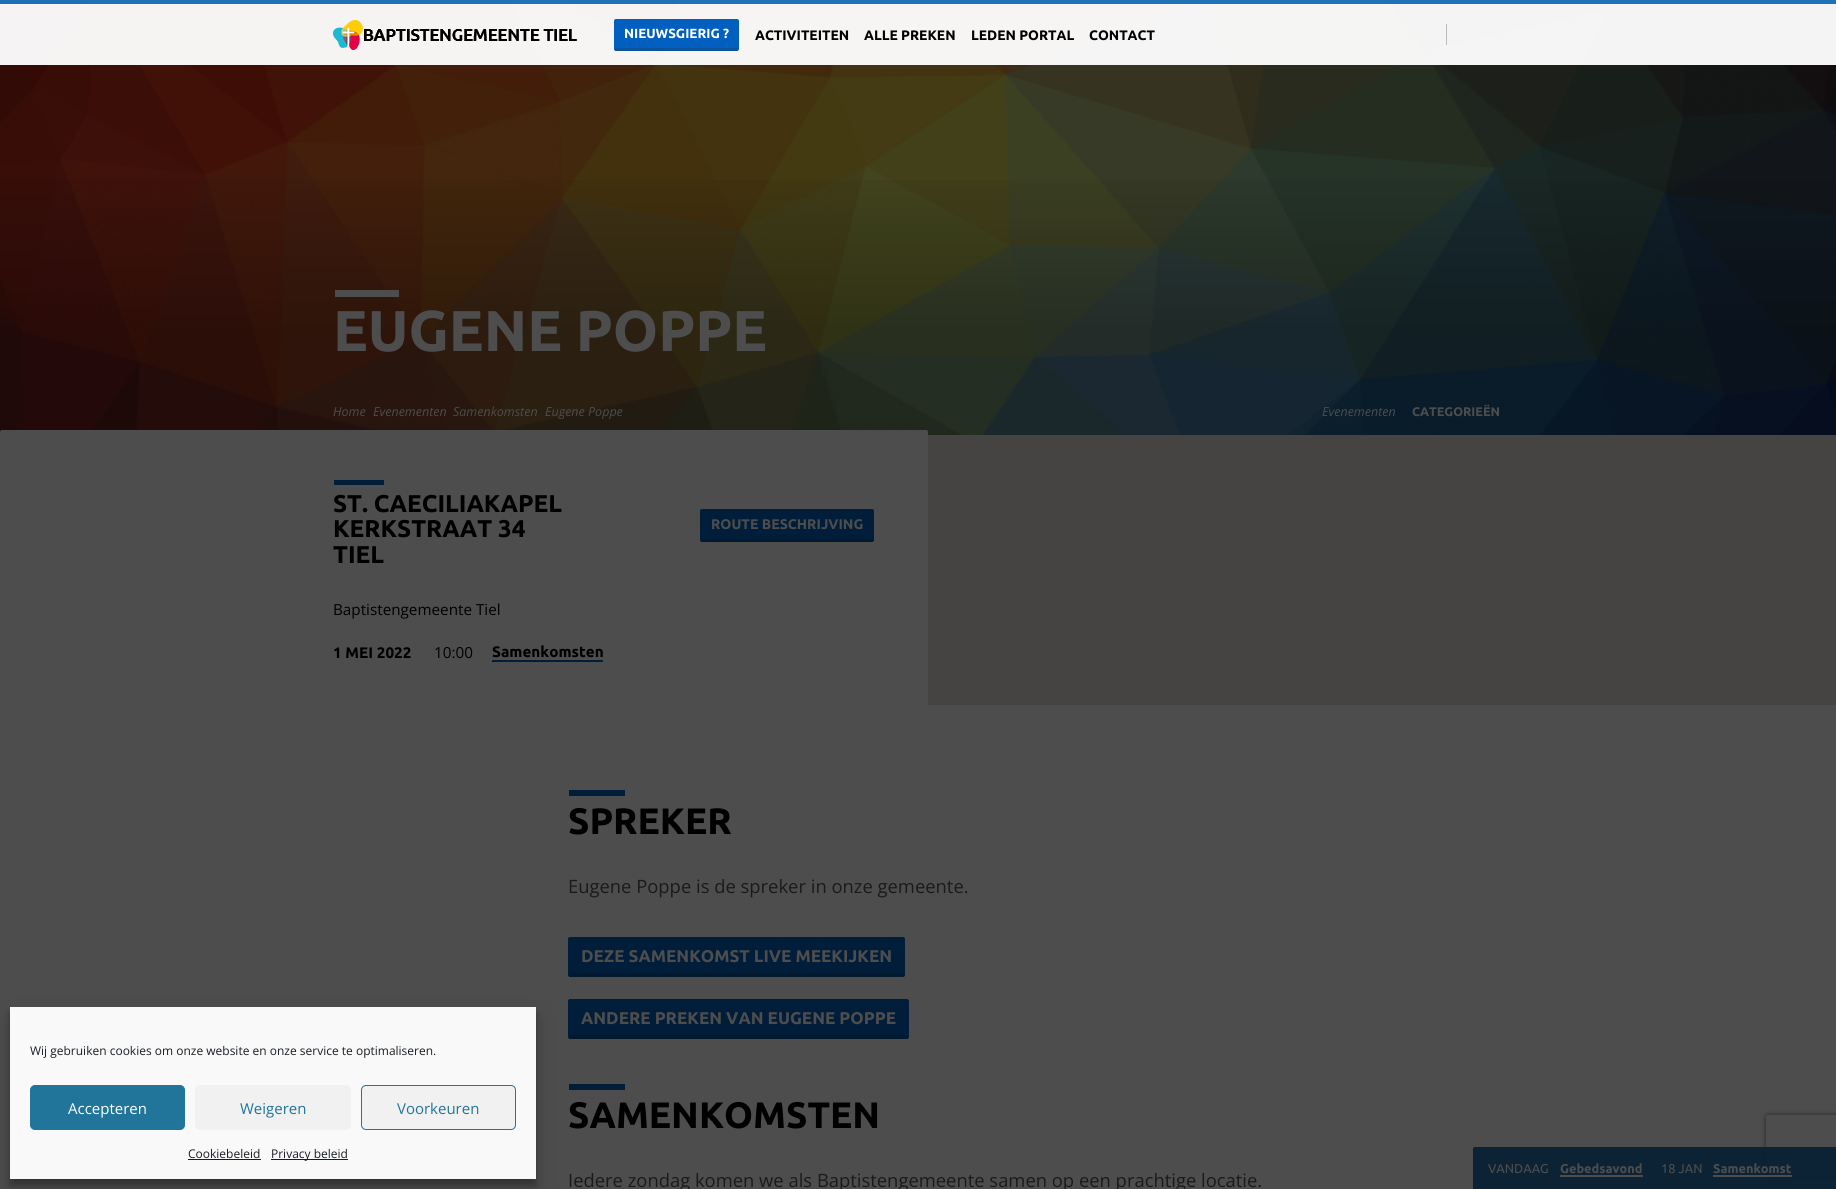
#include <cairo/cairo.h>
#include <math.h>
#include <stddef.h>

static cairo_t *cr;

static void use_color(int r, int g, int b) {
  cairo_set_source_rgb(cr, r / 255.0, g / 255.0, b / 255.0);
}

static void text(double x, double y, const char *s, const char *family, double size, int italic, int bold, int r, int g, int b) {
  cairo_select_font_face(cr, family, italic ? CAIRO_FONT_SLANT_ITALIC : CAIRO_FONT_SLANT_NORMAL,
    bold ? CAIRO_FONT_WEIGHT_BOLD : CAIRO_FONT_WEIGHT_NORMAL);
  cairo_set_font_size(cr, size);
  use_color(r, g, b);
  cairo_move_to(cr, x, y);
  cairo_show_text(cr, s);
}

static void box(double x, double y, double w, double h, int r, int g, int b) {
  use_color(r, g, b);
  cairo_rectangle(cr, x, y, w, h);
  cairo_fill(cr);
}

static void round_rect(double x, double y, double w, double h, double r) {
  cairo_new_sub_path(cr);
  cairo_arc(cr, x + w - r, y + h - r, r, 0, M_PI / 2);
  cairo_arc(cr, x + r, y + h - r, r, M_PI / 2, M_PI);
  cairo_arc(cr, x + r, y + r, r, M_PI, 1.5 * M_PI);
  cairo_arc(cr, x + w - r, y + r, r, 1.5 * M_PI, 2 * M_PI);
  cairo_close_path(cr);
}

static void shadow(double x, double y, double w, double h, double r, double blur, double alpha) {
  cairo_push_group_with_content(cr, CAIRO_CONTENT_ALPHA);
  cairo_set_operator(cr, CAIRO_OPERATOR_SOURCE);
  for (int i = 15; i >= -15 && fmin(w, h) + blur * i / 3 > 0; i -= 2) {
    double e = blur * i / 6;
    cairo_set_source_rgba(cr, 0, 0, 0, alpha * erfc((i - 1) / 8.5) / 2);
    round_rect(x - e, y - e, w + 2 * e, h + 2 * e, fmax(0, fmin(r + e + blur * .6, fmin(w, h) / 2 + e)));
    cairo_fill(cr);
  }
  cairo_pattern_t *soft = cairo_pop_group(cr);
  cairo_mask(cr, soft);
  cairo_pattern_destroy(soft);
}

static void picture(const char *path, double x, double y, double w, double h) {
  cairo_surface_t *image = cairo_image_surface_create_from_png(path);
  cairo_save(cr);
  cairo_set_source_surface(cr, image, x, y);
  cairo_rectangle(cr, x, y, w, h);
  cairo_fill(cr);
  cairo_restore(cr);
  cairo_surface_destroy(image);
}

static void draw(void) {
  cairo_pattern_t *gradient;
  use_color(77, 77, 77);
  cairo_paint(cr);
  picture("img_02.png", 0, 0, 1836, 435);
  cairo_set_source_rgba(cr, 0.125, 0.459, 0.749, 0.95);
  cairo_rectangle(cr, 0, 0, 1836, 4);
  cairo_fill(cr);
  cairo_set_source_rgba(cr, 1, 1, 1, 0.95);
  cairo_rectangle(cr, 0, 4, 1836, 61);
  cairo_fill(cr);
  picture("img_01.png", 333, 20, 244, 30);
  use_color(0, 95, 191);
  round_rect(614, 19, 125, 32, 2);
  cairo_fill(cr);
  cairo_set_source_rgba(cr, 0.196, 0.196, 0.196, 0.25);
  cairo_rectangle(cr, 615, 48, 123, 3);
  cairo_fill(cr);
  box(1446, 24, 1, 21, 187, 187, 187);
  gradient = cairo_pattern_create_linear(918, 0, 918, 435);
  cairo_pattern_add_color_stop_rgba(gradient, 0, 0, 0, 0, 0);
  cairo_pattern_add_color_stop_rgba(gradient, 0.36, 0, 0, 0, 0);
  cairo_pattern_add_color_stop_rgba(gradient, 0.76, 0, 0, 0, 0.28);
  cairo_pattern_add_color_stop_rgba(gradient, 1, 0, 0, 0, 0.28);
  cairo_set_source(cr, gradient);
  cairo_pattern_destroy(gradient);
  cairo_rectangle(cr, 0, 180, 1836, 255);
  cairo_fill(cr);
  box(335, 290, 64, 7, 77, 77, 77);
  use_color(0, 0, 0);
  shadow(10, 1013, 526, 172, 0, 3, 0.23);
  shadow(10, 1017, 526, 172, 0, 10, 0.19);
  box(10, 1007, 526, 172, 249, 249, 249);
  use_color(33, 117, 155);
  round_rect(30.5, 1085.5, 154, 44, 4.5);
  cairo_fill_preserve(cr);
  cairo_set_line_width(cr, 1);
  cairo_stroke(cr);
  use_color(241, 241, 241);
  round_rect(195, 1085, 156, 45, 5);
  cairo_fill(cr);
  round_rect(361.5, 1085.5, 154, 44, 4.5);
  cairo_fill_preserve(cr);
  use_color(33, 117, 155);
  cairo_stroke(cr);
  box(188, 1159, 73, 1, 25, 30, 35);
  box(271, 1159, 77, 1, 25, 30, 35);
  use_color(77, 77, 77);
  round_rect(0, 430, 928, 280, 2);
  cairo_fill(cr);
  box(928, 435, 908, 270, 69, 68, 67);
  box(334, 480, 50, 5, 0, 29, 57);
  round_rect(700, 509, 174, 33, 2);
  cairo_fill(cr);
  cairo_set_source_rgba(cr, 0.059, 0.059, 0.059, 0.25);
  cairo_rectangle(cr, 701, 539, 172, 3);
  cairo_fill(cr);
  box(492, 660, 111, 2, 0, 29, 57);
  box(569, 790, 56, 6, 0, 29, 57);
  round_rect(568, 937, 337, 40, 2);
  cairo_fill(cr);
  cairo_set_source_rgba(cr, 0.059, 0.059, 0.059, 0.25);
  cairo_rectangle(cr, 569, 973, 335, 4);
  cairo_fill(cr);
  use_color(0, 29, 57);
  round_rect(568, 999, 341, 40, 2);
  cairo_fill(cr);
  cairo_set_source_rgba(cr, 0.059, 0.059, 0.059, 0.25);
  cairo_rectangle(cr, 569, 1035, 339, 4);
  cairo_fill(cr);
  box(569, 1084, 56, 6, 0, 29, 57);
  cairo_save(cr);
  cairo_set_fill_rule(cr, CAIRO_FILL_RULE_EVEN_ODD);
  cairo_new_path(cr);
  cairo_move_to(cr, 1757, 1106);
  cairo_line_to(cr, 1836, 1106);
  cairo_line_to(cr, 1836, 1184);
  cairo_line_to(cr, 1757, 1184);
  cairo_close_path(cr);
  cairo_move_to(cr, 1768, 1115);
  cairo_line_to(cr, 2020, 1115);
  cairo_curve_to(cr, 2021, 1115, 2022, 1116, 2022, 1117);
  cairo_line_to(cr, 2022, 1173);
  cairo_curve_to(cr, 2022, 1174, 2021, 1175, 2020, 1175);
  cairo_line_to(cr, 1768, 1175);
  cairo_curve_to(cr, 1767, 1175, 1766, 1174, 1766, 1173);
  cairo_line_to(cr, 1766, 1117);
  cairo_curve_to(cr, 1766, 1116, 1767, 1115, 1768, 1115);
  cairo_close_path(cr);
  cairo_clip(cr);
  use_color(38, 38, 38);
  shadow(1766, 1115, 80, 60, 2, 2.5, 1);
  cairo_restore(cr);
  cairo_set_source_rgba(cr, 0.039, 0.137, 0.224, 0.95);
  cairo_new_path(cr);
  cairo_move_to(cr, 1475, 1147);
  cairo_line_to(cr, 1836, 1147);
  cairo_line_to(cr, 1836, 1189);
  cairo_line_to(cr, 1473, 1189);
  cairo_line_to(cr, 1473, 1149);
  cairo_curve_to(cr, 1473, 1148, 1474, 1147, 1475, 1147);
  cairo_close_path(cr);
  cairo_fill(cr);
  cairo_set_source_rgba(cr, 0, 0, 0, 0.07);
  cairo_rectangle(cr, 1473, 1147, 363, 42);
  cairo_fill(cr);
  box(1560, 1175, 83, 2, 77, 77, 77);
  box(1713, 1175, 79, 2, 77, 77, 77);
  text(624, 38, "NIEUWSGIERIG ?", "Ubuntu", 13.25, 0, 1, 255, 255, 255);
  text(755, 40, "ACTIVITEITEN", "Ubuntu", 13.75, 0, 1, 0, 0, 0);
  text(864, 40, "ALLE PREKEN", "Ubuntu", 13.75, 0, 1, 0, 0, 0);
  text(971, 40, "LEDEN PORTAL", "Ubuntu", 13.75, 0, 1, 0, 0, 0);
  text(1089, 40, "CONTACT", "Ubuntu", 13.75, 0, 1, 0, 0, 0);
  text(333, 351, "EUGENE POPPE", "Ubuntu", 57.5, 0, 1, 77, 77, 77);
  text(333, 416, "Home", "Open Sans", 12.5, 1, 0, 77, 77, 77);
  text(373, 416, "Evenementen", "Open Sans", 12.5, 1, 0, 77, 77, 77);
  text(453, 416, "Samenkomsten", "Open Sans", 12.5, 1, 0, 77, 77, 77);
  text(545, 416, "Eugene Poppe", "Open Sans", 12.5, 1, 0, 77, 77, 77);
  text(1322, 416, "Evenementen", "Open Sans", 12.5, 1, 0, 77, 77, 77);
  text(1412, 416, "CATEGORIEËN", "Ubuntu", 12.5, 0, 1, 77, 77, 77);
  text(30, 1055, "Wij gebruiken cookies om onze website en onze service te optimaliseren.", "Open Sans", 12, 0, 0, 25, 30, 35);
  text(68, 1114, "Accepteren", "Open Sans", 15, 0, 0, 255, 255, 255);
  text(240, 1114, "Weigeren", "Open Sans", 15, 0, 0, 33, 117, 155);
  text(397, 1114, "Voorkeuren", "Open Sans", 15, 0, 0, 33, 117, 155);
  text(188, 1158, "Cookiebeleid", "Open Sans", 12, 0, 0, 25, 30, 35);
  text(271, 1158, "Privacy beleid", "Open Sans", 12, 0, 0, 25, 30, 35);
  text(333, 512, "ST. CAECILIAKAPEL", "Ubuntu", 24.25, 0, 1, 0, 0, 0);
  text(333, 537, "KERKSTRAAT 34", "Ubuntu", 24.25, 0, 1, 0, 0, 0);
  text(333, 563, "TIEL", "Ubuntu", 24.25, 0, 1, 0, 0, 0);
  text(711, 529, "ROUTE BESCHRIJVING", "Ubuntu", 14, 0, 1, 77, 77, 77);
  text(333, 615, "Baptistengemeente Tiel", "Open Sans", 15.25, 0, 0, 0, 0, 0);
  text(333, 658, "1 MEI 2022", "Ubuntu", 15.25, 0, 1, 0, 0, 0);
  text(434, 658, "10:00", "Open Sans", 15.25, 0, 0, 0, 0, 0);
  text(492, 657, "Samenkomsten", "Ubuntu", 15.25, 0, 1, 0, 0, 0);
  text(568, 834, "SPREKER", "Ubuntu", 36.75, 0, 1, 0, 0, 0);
  text(568, 893, "Eugene Poppe is de spreker in onze gemeente.", "Open Sans", 18.4, 0, 0, 26, 26, 26);
  text(581, 962, "DEZE SAMENKOMST LIVE MEEKIJKEN", "Ubuntu", 17, 0, 1, 77, 77, 77);
  text(581, 1024, "ANDERE PREKEN VAN EUGENE POPPE", "Ubuntu", 17, 0, 1, 77, 77, 77);
  text(568, 1128, "SAMENKOMSTEN", "Ubuntu", 36.75, 0, 1, 0, 0, 0);
  text(568, 1187, "Iedere zondag komen we als Baptistengemeente samen op een prachtige locatie.", "Open Sans", 18.4, 0, 0, 26, 26, 26);
  text(1488, 1173, "VANDAAG", "Ubuntu", 12.75, 0, 0, 77, 77, 77);
  text(1560, 1173, "Gebedsavond", "Ubuntu", 12.75, 0, 1, 77, 77, 77);
  text(1661, 1173, "18 JAN", "Ubuntu", 12.75, 0, 0, 77, 77, 77);
  text(1713, 1173, "Samenkomst", "Ubuntu", 12.75, 0, 1, 77, 77, 77);
}

int main(void) {
  cairo_surface_t *surface = cairo_image_surface_create(CAIRO_FORMAT_RGB24, 1836, 1189);
  cr = cairo_create(surface);
  cairo_font_options_t *options = cairo_font_options_create();
  cairo_font_options_set_hint_metrics(options, CAIRO_HINT_METRICS_OFF);
  cairo_font_options_set_hint_style(options, CAIRO_HINT_STYLE_NONE);
  cairo_set_font_options(cr, options);
  cairo_set_miter_limit(cr, 4);
  draw();
  cairo_surface_write_to_png(surface, "out.png");
  cairo_font_options_destroy(options);
  cairo_destroy(cr);
  cairo_surface_destroy(surface);
  return 0;
}
